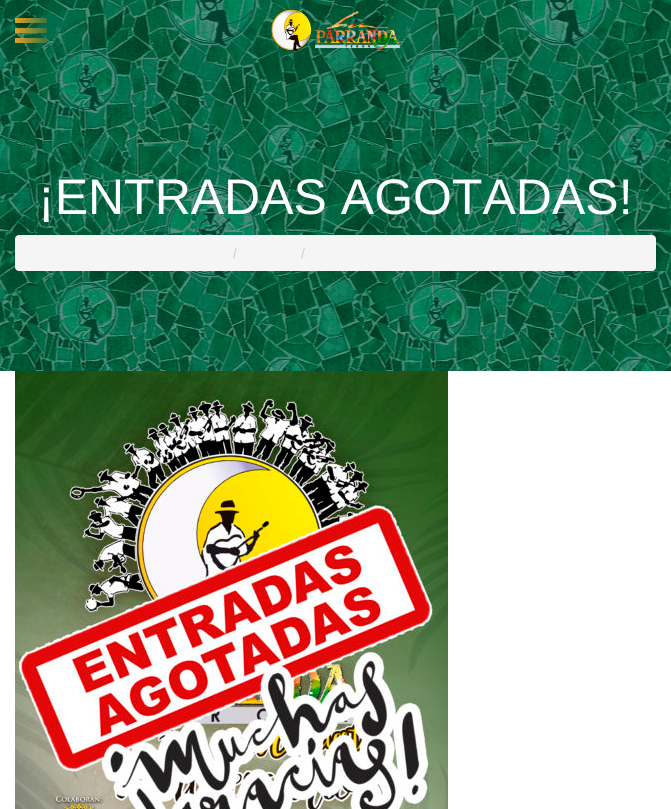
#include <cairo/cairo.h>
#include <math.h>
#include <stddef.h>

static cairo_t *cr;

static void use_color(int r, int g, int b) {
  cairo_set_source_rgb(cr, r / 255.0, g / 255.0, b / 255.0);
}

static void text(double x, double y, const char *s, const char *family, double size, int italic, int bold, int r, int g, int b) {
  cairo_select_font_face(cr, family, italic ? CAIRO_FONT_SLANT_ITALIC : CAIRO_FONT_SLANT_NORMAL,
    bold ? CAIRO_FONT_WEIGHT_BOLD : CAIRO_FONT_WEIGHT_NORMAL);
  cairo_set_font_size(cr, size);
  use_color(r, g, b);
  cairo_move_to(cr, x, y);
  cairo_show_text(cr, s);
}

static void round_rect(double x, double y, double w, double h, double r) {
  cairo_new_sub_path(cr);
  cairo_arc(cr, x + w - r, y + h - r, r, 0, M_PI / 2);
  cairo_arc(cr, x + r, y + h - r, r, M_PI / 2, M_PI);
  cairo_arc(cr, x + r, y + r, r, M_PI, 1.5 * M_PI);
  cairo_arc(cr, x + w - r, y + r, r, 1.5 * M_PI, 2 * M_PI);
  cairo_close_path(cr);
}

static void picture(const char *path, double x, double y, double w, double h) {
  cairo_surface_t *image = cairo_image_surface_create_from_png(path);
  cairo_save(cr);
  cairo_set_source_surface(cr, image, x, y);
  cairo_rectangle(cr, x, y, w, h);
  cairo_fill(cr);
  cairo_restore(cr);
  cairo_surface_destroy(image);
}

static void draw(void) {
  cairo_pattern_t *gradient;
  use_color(255, 255, 255);
  cairo_paint(cr);
  picture("img_02.png", 0, 0, 671, 371);
  gradient = cairo_pattern_create_linear(15, 30, 47, 30);
  cairo_pattern_add_color_stop_rgba(gradient, 0, 0.882, 0.631, 0.145, 1);
  cairo_pattern_add_color_stop_rgba(gradient, 1, 0.235, 0.455, 0.263, 1);
  cairo_set_source(cr, gradient);
  cairo_pattern_destroy(gradient);
  cairo_rectangle(cr, 15, 28, 32, 5);
  cairo_fill(cr);
  gradient = cairo_pattern_create_linear(15, 20, 47, 20);
  cairo_pattern_add_color_stop_rgba(gradient, 0, 0.882, 0.631, 0.145, 1);
  cairo_pattern_add_color_stop_rgba(gradient, 1, 0.235, 0.455, 0.263, 1);
  cairo_set_source(cr, gradient);
  cairo_pattern_destroy(gradient);
  cairo_rectangle(cr, 15, 18, 32, 5);
  cairo_fill(cr);
  gradient = cairo_pattern_create_linear(15, 40, 47, 40);
  cairo_pattern_add_color_stop_rgba(gradient, 0, 0.882, 0.631, 0.145, 1);
  cairo_pattern_add_color_stop_rgba(gradient, 1, 0.235, 0.455, 0.263, 1);
  cairo_set_source(cr, gradient);
  cairo_pattern_destroy(gradient);
  cairo_rectangle(cr, 15, 38, 32, 5);
  cairo_fill(cr);
  picture("img_01.png", 271, 9, 129, 43);
  use_color(245, 245, 245);
  round_rect(15, 235, 641, 36, 4);
  cairo_fill(cr);
  picture("img_03.png", 15, 371, 433, 438);
  text(38, 214, "¡ENTRADAS AGOTADAS!", "Liberation Sans", 50, 0, 0, 254, 254, 255);
  text(233, 258, "/", "Liberation Sans", 14, 0, 0, 204, 204, 204);
  text(301, 258, "/", "Liberation Sans", 14, 0, 0, 204, 204, 204);
}

int main(void) {
  cairo_surface_t *surface = cairo_image_surface_create(CAIRO_FORMAT_RGB24, 671, 809);
  cr = cairo_create(surface);
  cairo_font_options_t *options = cairo_font_options_create();
  cairo_font_options_set_hint_metrics(options, CAIRO_HINT_METRICS_OFF);
  cairo_font_options_set_hint_style(options, CAIRO_HINT_STYLE_NONE);
  cairo_set_font_options(cr, options);
  cairo_set_miter_limit(cr, 4);
  draw();
  cairo_surface_write_to_png(surface, "out.png");
  cairo_font_options_destroy(options);
  cairo_destroy(cr);
  cairo_surface_destroy(surface);
  return 0;
}
